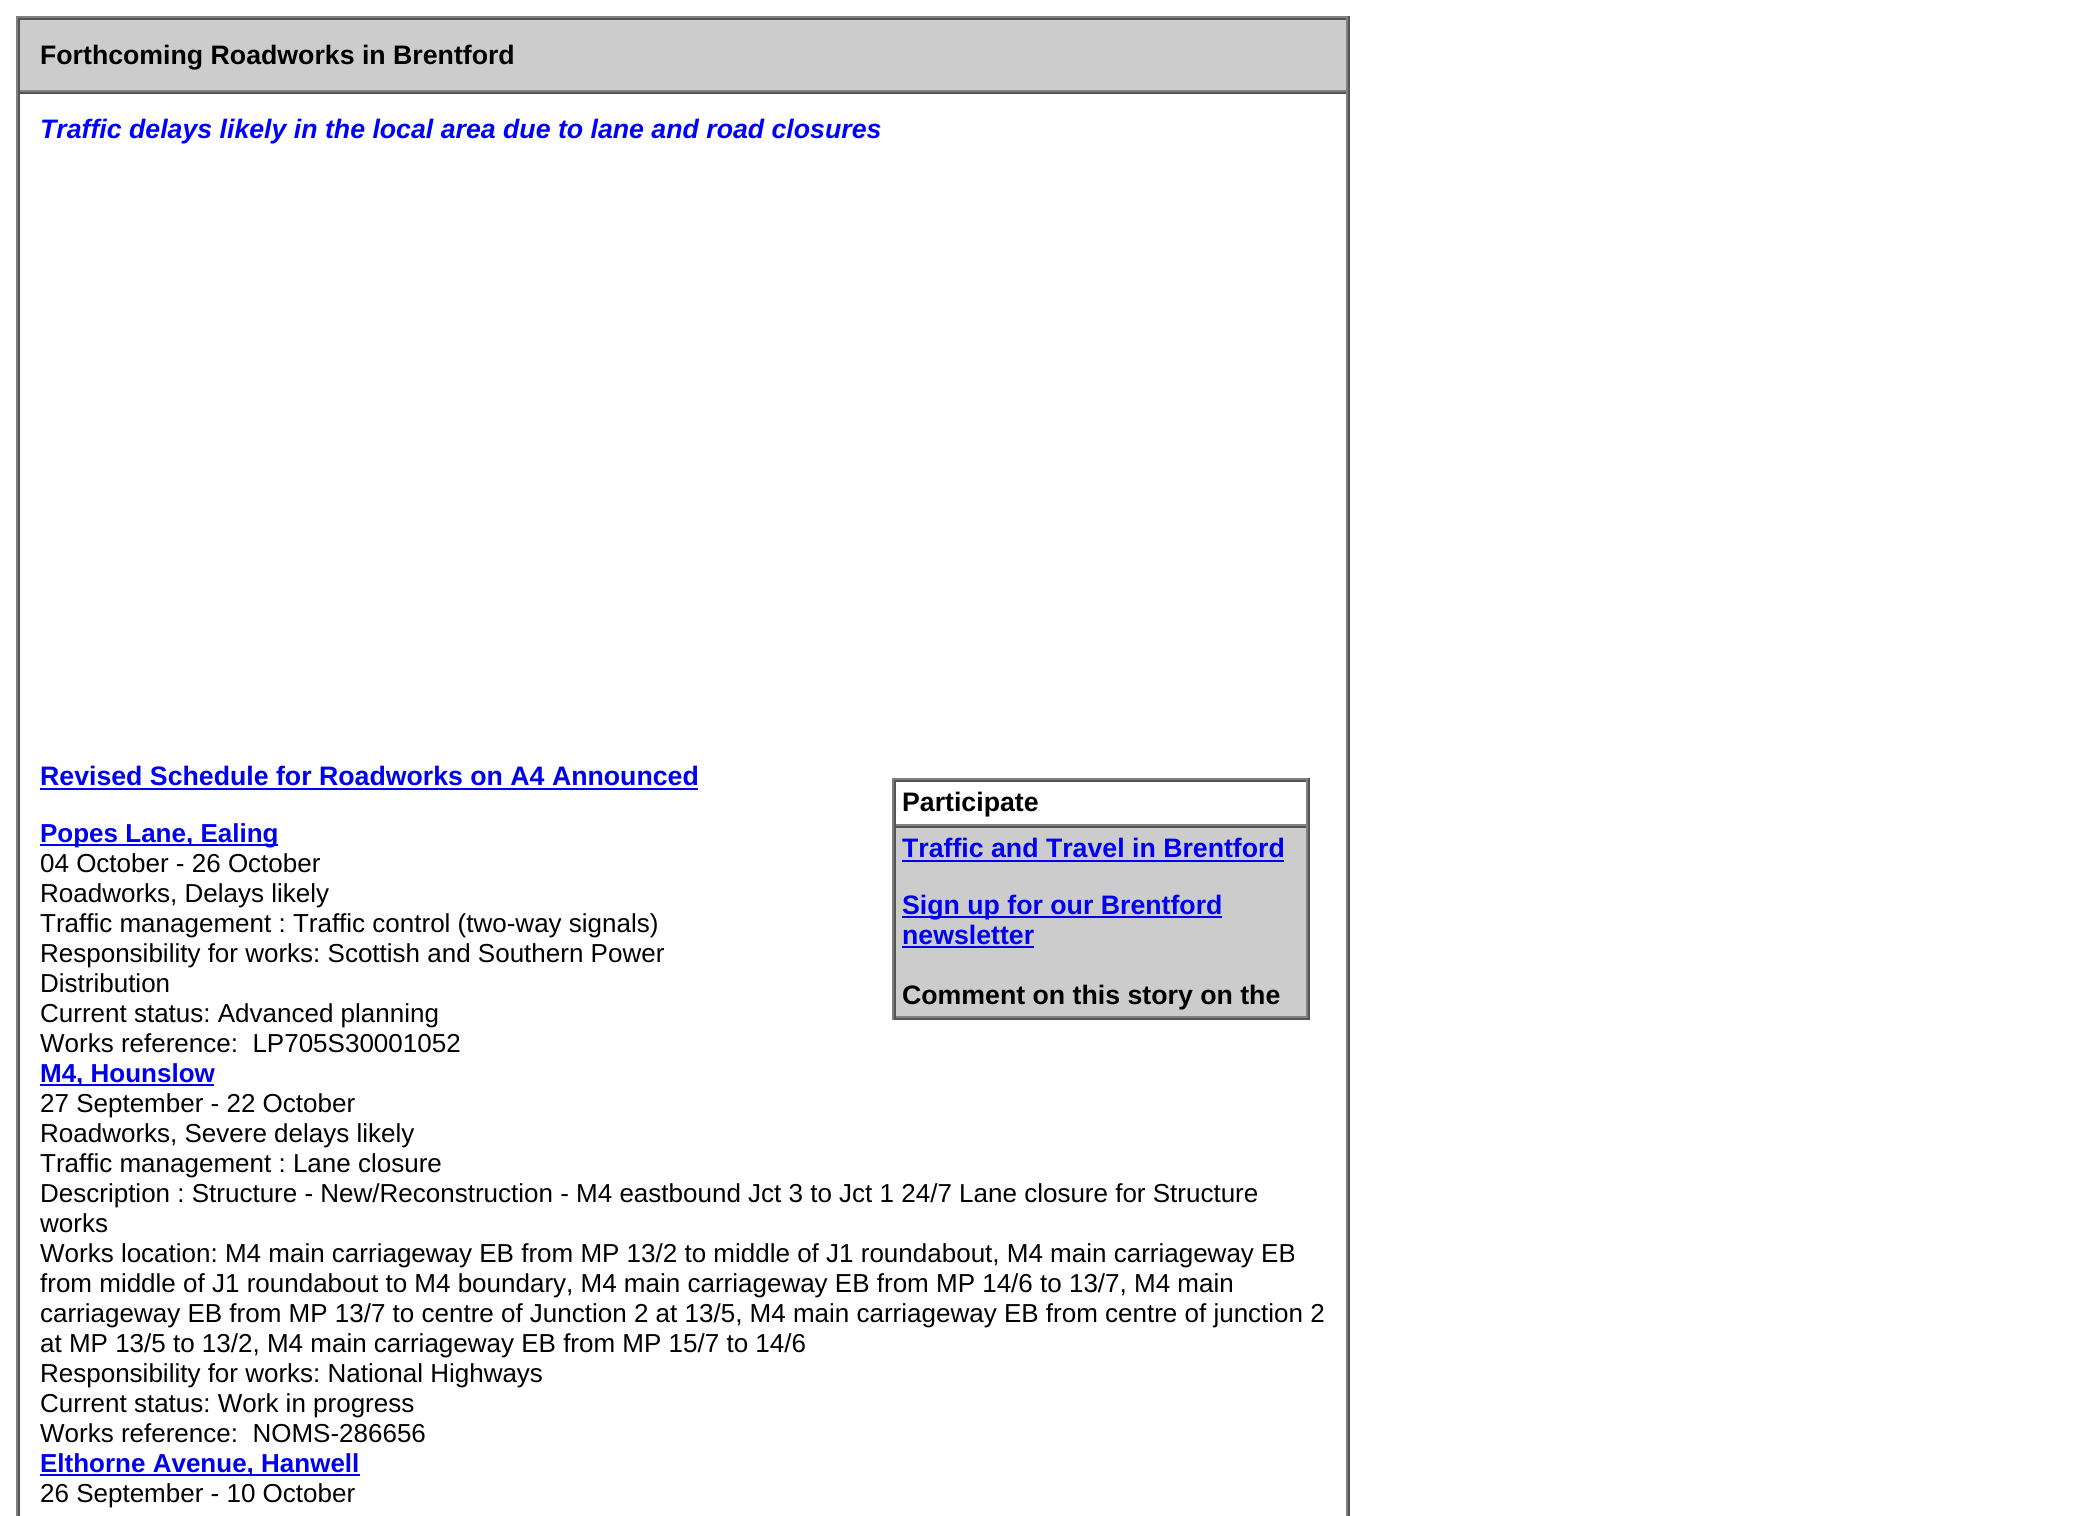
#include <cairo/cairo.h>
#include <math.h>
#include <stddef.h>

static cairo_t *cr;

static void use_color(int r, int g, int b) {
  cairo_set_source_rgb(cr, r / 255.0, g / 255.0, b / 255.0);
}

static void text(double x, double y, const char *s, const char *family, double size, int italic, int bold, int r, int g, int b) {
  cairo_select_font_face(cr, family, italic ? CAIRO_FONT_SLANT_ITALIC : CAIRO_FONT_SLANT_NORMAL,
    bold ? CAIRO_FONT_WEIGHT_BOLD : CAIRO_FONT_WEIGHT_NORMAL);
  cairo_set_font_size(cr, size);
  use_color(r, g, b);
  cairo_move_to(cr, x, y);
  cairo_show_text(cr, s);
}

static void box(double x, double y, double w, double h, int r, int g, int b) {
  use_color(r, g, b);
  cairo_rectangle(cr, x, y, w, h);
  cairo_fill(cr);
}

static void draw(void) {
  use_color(255, 255, 255);
  cairo_paint(cr);
  box(16, 16, 1334, 2, 128, 128, 128);
  box(1348, 16, 2, 1500, 85, 85, 85);
  box(16, 16, 2, 1500, 128, 128, 128);
  box(20, 20, 1326, 70, 204, 204, 204);
  box(18, 18, 1330, 2, 85, 85, 85);
  box(1346, 18, 2, 74, 128, 128, 128);
  box(18, 90, 1330, 2, 128, 128, 128);
  box(18, 18, 2, 74, 85, 85, 85);
  box(18, 92, 1330, 2, 85, 85, 85);
  box(1346, 92, 2, 1424, 128, 128, 128);
  box(18, 92, 2, 1424, 85, 85, 85);
  box(40, 788, 658, 2, 0, 0, 238);
  box(40, 844, 238, 2, 0, 0, 238);
  box(892, 778, 418, 2, 128, 128, 128);
  box(1308, 778, 2, 242, 85, 85, 85);
  box(892, 1018, 418, 2, 85, 85, 85);
  box(892, 778, 2, 242, 128, 128, 128);
  box(894, 780, 414, 2, 85, 85, 85);
  box(1306, 780, 2, 46, 128, 128, 128);
  box(894, 824, 414, 2, 128, 128, 128);
  box(894, 780, 2, 46, 85, 85, 85);
  box(896, 828, 410, 188, 204, 204, 204);
  box(894, 826, 414, 2, 85, 85, 85);
  box(1306, 826, 2, 192, 128, 128, 128);
  box(894, 1016, 414, 2, 128, 128, 128);
  box(894, 826, 2, 192, 85, 85, 85);
  box(902, 860, 382, 2, 0, 0, 238);
  box(902, 916, 320, 2, 0, 0, 238);
  box(902, 946, 132, 2, 0, 0, 238);
  box(40, 1084, 174, 2, 0, 0, 238);
  box(40, 1474, 320, 2, 0, 0, 238);
  text(40, 64, "Forthcoming Roadworks in Brentford", "Liberation Sans", 26.7, 0, 1, 0, 0, 0);
  text(40, 138, "Traffic delays likely in the local area due to lane and road closures", "Liberation Sans", 26.7, 1, 1, 0, 0, 255);
  text(40, 785, "Revised Schedule for Roadworks on A4 Announced", "Liberation Sans", 26.7, 0, 1, 0, 0, 238);
  text(40, 842, "Popes Lane, Ealing", "Liberation Sans", 26, 0, 1, 0, 0, 238);
  text(40, 872, "04 October - 26 October", "Liberation Sans", 26, 0, 0, 0, 0, 0);
  text(40, 902, "Roadworks, Delays likely", "Liberation Sans", 26, 0, 0, 0, 0, 0);
  text(40, 932, "Traffic management : Traffic control (two-way signals)", "Liberation Sans", 26, 0, 0, 0, 0, 0);
  text(40, 962, "Responsibility for works: Scottish and Southern Power", "Liberation Sans", 26, 0, 0, 0, 0, 0);
  text(40, 992, "Distribution", "Liberation Sans", 26, 0, 0, 0, 0, 0);
  text(40, 1022, "Current status: Advanced planning", "Liberation Sans", 26, 0, 0, 0, 0, 0);
  text(40, 1052, "Works reference:  LP705S30001052", "Liberation Sans", 26, 0, 0, 0, 0, 0);
  text(902, 811, "Participate", "Liberation Sans", 26.7, 0, 1, 0, 0, 0);
  text(902, 857, "Traffic and Travel in Brentford", "Liberation Sans", 26.7, 0, 1, 0, 0, 238);
  text(902, 914, "Sign up for our Brentford", "Liberation Sans", 26.7, 0, 1, 0, 0, 238);
  text(902, 944, "newsletter", "Liberation Sans", 26.7, 0, 1, 0, 0, 238);
  text(902, 1004, "Comment on this story on the", "Liberation Sans", 26.7, 0, 1, 0, 0, 0);
  text(40, 1082, "M4, Hounslow", "Liberation Sans", 26, 0, 1, 0, 0, 238);
  text(40, 1112, "27 September - 22 October", "Liberation Sans", 26, 0, 0, 0, 0, 0);
  text(40, 1142, "Roadworks, Severe delays likely", "Liberation Sans", 26, 0, 0, 0, 0, 0);
  text(40, 1172, "Traffic management : Lane closure", "Liberation Sans", 26, 0, 0, 0, 0, 0);
  text(40, 1202, "Description : Structure - New/Reconstruction - M4 eastbound Jct 3 to Jct 1 24/7 Lane closure for Structure", "Liberation Sans", 26, 0, 0, 0, 0, 0);
  text(40, 1232, "works", "Liberation Sans", 26, 0, 0, 0, 0, 0);
  text(40, 1262, "Works location: M4 main carriageway EB from MP 13/2 to middle of J1 roundabout, M4 main carriageway EB", "Liberation Sans", 26, 0, 0, 0, 0, 0);
  text(40, 1292, "from middle of J1 roundabout to M4 boundary, M4 main carriageway EB from MP 14/6 to 13/7, M4 main", "Liberation Sans", 26, 0, 0, 0, 0, 0);
  text(40, 1322, "carriageway EB from MP 13/7 to centre of Junction 2 at 13/5, M4 main carriageway EB from centre of junction 2", "Liberation Sans", 26, 0, 0, 0, 0, 0);
  text(40, 1352, "at MP 13/5 to 13/2, M4 main carriageway EB from MP 15/7 to 14/6", "Liberation Sans", 26, 0, 0, 0, 0, 0);
  text(40, 1382, "Responsibility for works: National Highways", "Liberation Sans", 26, 0, 0, 0, 0, 0);
  text(40, 1412, "Current status: Work in progress", "Liberation Sans", 26, 0, 0, 0, 0, 0);
  text(40, 1442, "Works reference:  NOMS-286656", "Liberation Sans", 26, 0, 0, 0, 0, 0);
  text(40, 1472, "Elthorne Avenue, Hanwell", "Liberation Sans", 26, 0, 1, 0, 0, 238);
  text(40, 1502, "26 September - 10 October", "Liberation Sans", 26, 0, 0, 0, 0, 0);
}

int main(void) {
  cairo_surface_t *surface = cairo_image_surface_create(CAIRO_FORMAT_RGB24, 2094, 1516);
  cr = cairo_create(surface);
  cairo_font_options_t *options = cairo_font_options_create();
  cairo_font_options_set_hint_metrics(options, CAIRO_HINT_METRICS_OFF);
  cairo_font_options_set_hint_style(options, CAIRO_HINT_STYLE_NONE);
  cairo_set_font_options(cr, options);
  cairo_set_miter_limit(cr, 4);
  draw();
  cairo_surface_write_to_png(surface, "out.png");
  cairo_font_options_destroy(options);
  cairo_destroy(cr);
  cairo_surface_destroy(surface);
  return 0;
}
